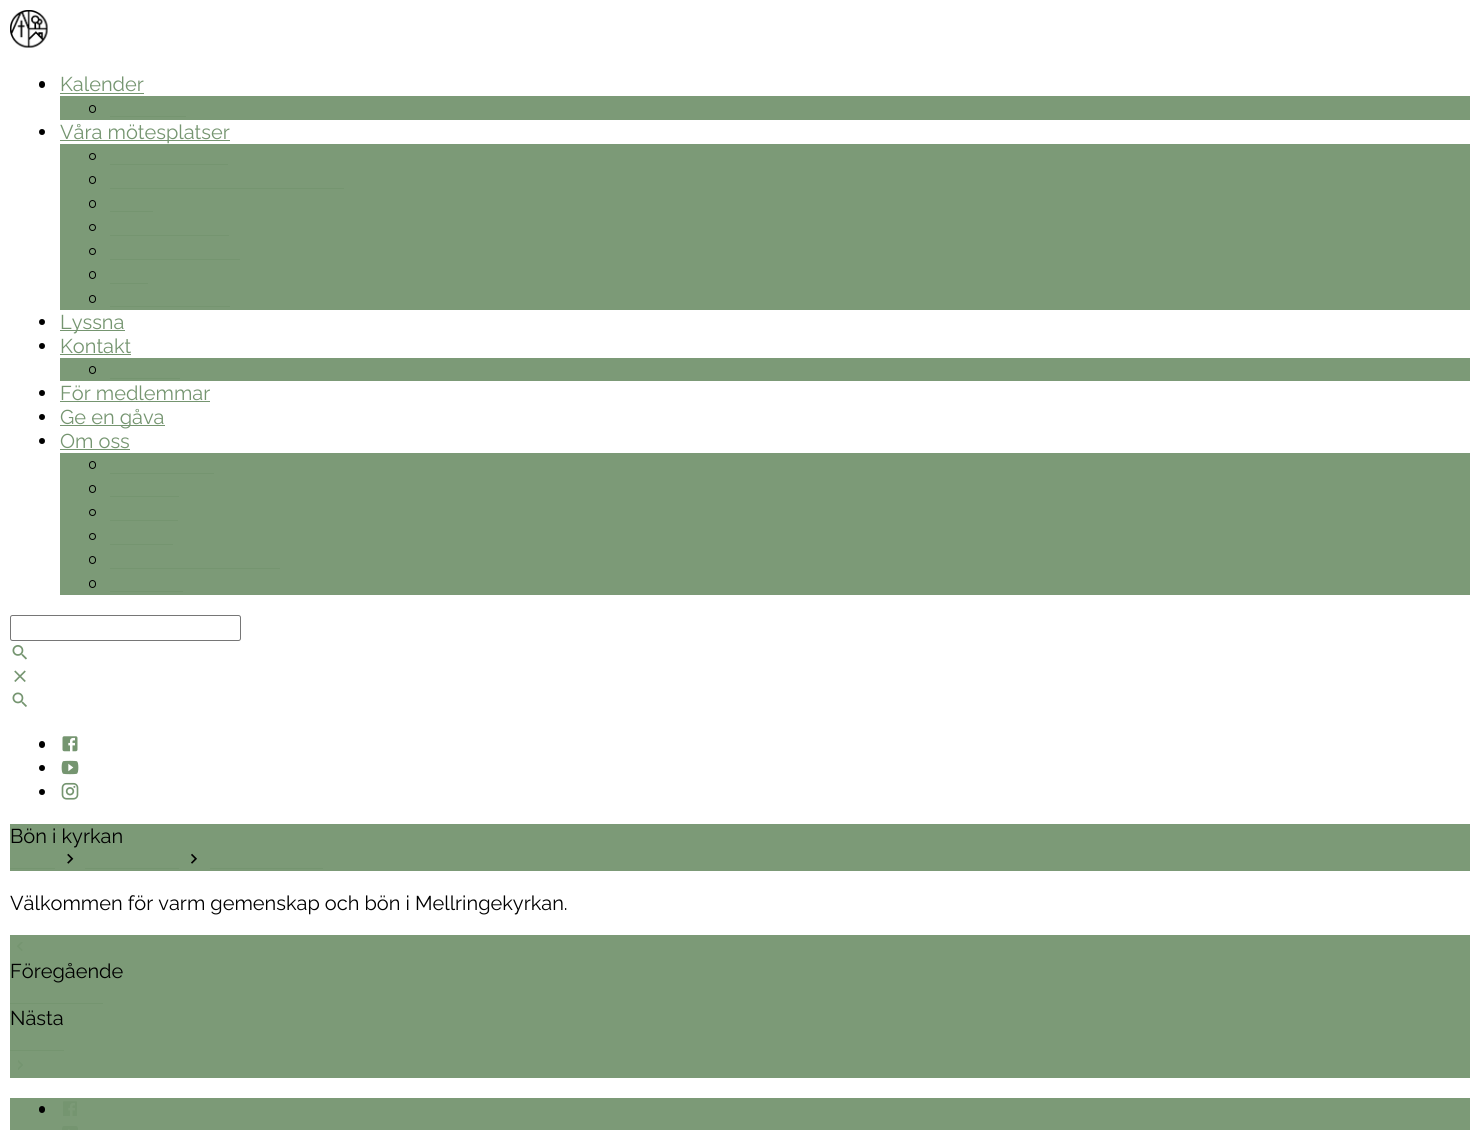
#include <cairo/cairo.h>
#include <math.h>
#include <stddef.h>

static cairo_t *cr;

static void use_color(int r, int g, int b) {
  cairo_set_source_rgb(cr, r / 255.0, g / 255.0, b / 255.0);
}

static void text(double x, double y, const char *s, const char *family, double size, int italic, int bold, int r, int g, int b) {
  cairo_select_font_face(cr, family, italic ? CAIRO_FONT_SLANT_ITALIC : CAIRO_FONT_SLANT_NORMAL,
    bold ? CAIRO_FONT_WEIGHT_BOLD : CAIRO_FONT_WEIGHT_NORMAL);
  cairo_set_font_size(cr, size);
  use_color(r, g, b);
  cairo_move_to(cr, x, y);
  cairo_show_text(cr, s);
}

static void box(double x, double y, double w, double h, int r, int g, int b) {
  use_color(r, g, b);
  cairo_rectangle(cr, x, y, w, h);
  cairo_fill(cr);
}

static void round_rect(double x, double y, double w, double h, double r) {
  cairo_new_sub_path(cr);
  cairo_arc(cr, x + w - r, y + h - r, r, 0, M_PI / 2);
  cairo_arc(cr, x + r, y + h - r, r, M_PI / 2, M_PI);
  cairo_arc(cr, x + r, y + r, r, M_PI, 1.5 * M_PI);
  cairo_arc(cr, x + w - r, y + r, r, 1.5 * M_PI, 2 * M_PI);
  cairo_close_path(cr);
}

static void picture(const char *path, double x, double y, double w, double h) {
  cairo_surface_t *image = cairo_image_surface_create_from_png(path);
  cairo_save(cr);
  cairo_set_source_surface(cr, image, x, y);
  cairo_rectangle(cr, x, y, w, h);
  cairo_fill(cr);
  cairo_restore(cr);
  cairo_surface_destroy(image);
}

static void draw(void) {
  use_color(255, 255, 255);
  cairo_paint(cr);
  picture("img_01.png", 10, 10, 38, 38);
  use_color(0, 0, 0);
  round_rect(39, 81, 6, 7, 3);
  cairo_fill(cr);
  box(60, 93, 84, 1, 117, 149, 112);
  box(60, 96, 1410, 24, 124, 154, 119);
  round_rect(89.5, 105.5, 6, 7, 3);
  use_color(0, 0, 0);
  cairo_set_line_width(cr, 1);
  cairo_stroke(cr);
  box(110, 116, 76, 1, 117, 149, 112);
  use_color(0, 0, 0);
  cairo_arc(cr, 42, 132, 3, 0, 2 * M_PI);
  cairo_fill(cr);
  box(60, 140, 170, 1, 117, 149, 112);
  box(60, 144, 1410, 166, 124, 154, 119);
  cairo_arc(cr, 92.5, 156.5, 3, 0, 2 * M_PI);
  use_color(0, 0, 0);
  cairo_stroke(cr);
  box(110, 164, 118, 1, 117, 149, 112);
  round_rect(89.5, 176.5, 6, 7, 3);
  use_color(0, 0, 0);
  cairo_stroke(cr);
  box(110, 188, 234, 1, 117, 149, 112);
  round_rect(89.5, 200.5, 6, 7, 3);
  use_color(0, 0, 0);
  cairo_stroke(cr);
  box(110, 211, 43, 1, 117, 149, 112);
  cairo_arc(cr, 92.5, 227.5, 3, 0, 2 * M_PI);
  use_color(0, 0, 0);
  cairo_stroke(cr);
  box(110, 235, 119, 1, 117, 149, 112);
  cairo_arc(cr, 92.5, 251.5, 3, 0, 2 * M_PI);
  use_color(0, 0, 0);
  cairo_stroke(cr);
  box(110, 259, 130, 1, 117, 149, 112);
  round_rect(89.5, 271.5, 6, 7, 3);
  use_color(0, 0, 0);
  cairo_stroke(cr);
  box(110, 283, 38, 1, 117, 149, 112);
  round_rect(89.5, 295.5, 6, 7, 3);
  use_color(0, 0, 0);
  cairo_stroke(cr);
  box(110, 306, 120, 1, 117, 149, 112);
  use_color(0, 0, 0);
  cairo_arc(cr, 42, 322, 3, 0, 2 * M_PI);
  cairo_fill(cr);
  box(60, 330, 65, 1, 117, 149, 112);
  use_color(0, 0, 0);
  cairo_arc(cr, 42, 346, 3, 0, 2 * M_PI);
  cairo_fill(cr);
  box(60, 354, 71, 1, 117, 149, 112);
  box(60, 358, 1410, 23, 124, 154, 119);
  round_rect(89.5, 366.5, 6, 7, 3);
  use_color(0, 0, 0);
  cairo_stroke(cr);
  box(110, 378, 70, 1, 117, 149, 112);
  use_color(0, 0, 0);
  cairo_arc(cr, 42, 393, 3, 0, 2 * M_PI);
  cairo_fill(cr);
  box(60, 401, 150, 1, 117, 149, 112);
  use_color(0, 0, 0);
  cairo_arc(cr, 42, 417, 3, 0, 2 * M_PI);
  cairo_fill(cr);
  box(60, 425, 105, 1, 117, 149, 112);
  use_color(0, 0, 0);
  cairo_arc(cr, 42, 441, 3, 0, 2 * M_PI);
  cairo_fill(cr);
  box(60, 449, 70, 1, 117, 149, 112);
  box(60, 453, 1410, 142, 124, 154, 119);
  round_rect(89.5, 461.5, 6, 7, 3);
  use_color(0, 0, 0);
  cairo_stroke(cr);
  box(110, 473, 104, 1, 117, 149, 112);
  round_rect(89.5, 485.5, 6, 7, 3);
  use_color(0, 0, 0);
  cairo_stroke(cr);
  box(110, 496, 69, 1, 117, 149, 112);
  cairo_arc(cr, 92.5, 512.5, 3, 0, 2 * M_PI);
  use_color(0, 0, 0);
  cairo_stroke(cr);
  box(110, 520, 68, 1, 117, 149, 112);
  cairo_arc(cr, 92.5, 536.5, 3, 0, 2 * M_PI);
  use_color(0, 0, 0);
  cairo_stroke(cr);
  box(110, 544, 63, 1, 117, 149, 112);
  round_rect(89.5, 556.5, 6, 7, 3);
  use_color(0, 0, 0);
  cairo_stroke(cr);
  box(110, 568, 170, 1, 117, 149, 112);
  round_rect(89.5, 580.5, 6, 7, 3);
  use_color(0, 0, 0);
  cairo_stroke(cr);
  box(110, 591, 73, 1, 117, 149, 112);
  round_rect(10.5, 615.5, 230, 25, 2);
  use_color(118, 118, 118);
  cairo_stroke(cr);
  picture("img_02.png", 12, 645, 15, 15);
  picture("img_03.png", 14, 670, 12, 12);
  picture("img_04.png", 12, 692, 15, 15);
  use_color(0, 0, 0);
  round_rect(39, 741, 6, 7, 3);
  cairo_fill(cr);
  picture("img_05.png", 62, 736, 16, 16);
  cairo_arc(cr, 42, 768, 3, 0, 2 * M_PI);
  cairo_fill(cr);
  picture("img_06.png", 61, 760, 18, 15);
  cairo_arc(cr, 42, 792, 3, 0, 2 * M_PI);
  cairo_fill(cr);
  picture("img_07.png", 61, 782, 18, 18);
  box(10, 824, 1460, 47, 124, 154, 119);
  picture("img_08.png", 67, 853, 7, 11);
  picture("img_09.png", 191, 853, 6, 11);
  box(10, 868, 45, 1, 117, 149, 112);
  box(85, 868, 94, 1, 117, 149, 112);
  box(210, 868, 113, 1, 117, 149, 112);
  box(10, 935, 1460, 143, 124, 154, 119);
  picture("img_10.png", 17, 942, 6, 9);
  box(10, 1003, 93, 1, 117, 149, 112);
  box(10, 1050, 54, 1, 117, 149, 112);
  picture("img_11.png", 18, 1060, 5, 10);
  box(10, 1098, 1460, 32, 124, 154, 119);
  use_color(0, 0, 0);
  round_rect(39, 1106, 6, 7, 3);
  cairo_fill(cr);
  picture("img_12.png", 63, 1101, 14, 15);
  picture("img_13.png", 62, 1126, 16, 4);
  text(60, 91, "Kalender", "Raleway", 20, 0, 0, 117, 149, 112);
  text(60, 139, "Våra mötesplatser", "Raleway", 20, 0, 0, 117, 149, 112);
  text(60, 329, "Lyssna", "Raleway", 20, 0, 0, 117, 149, 112);
  text(60, 353, "Kontakt", "Raleway", 20, 0, 0, 117, 149, 112);
  text(60, 400, "För medlemmar", "Raleway", 20, 0, 0, 117, 149, 112);
  text(60, 424, "Ge en gåva", "Raleway", 20, 0, 0, 117, 149, 112);
  text(60, 448, "Om oss", "Raleway", 20, 0, 0, 117, 149, 112);
  text(10, 843, "Bön i kyrkan", "Raleway", 20, 0, 0, 0, 0, 0);
  text(10, 910, "Välkommen för varm gemenskap och bön i Mellringekyrkan.", "Raleway", 20, 0, 0, 0, 0, 0);
  text(10, 978, "Föregående", "Raleway", 20, 0, 0, 0, 0, 0);
  text(10, 1025, "Nästa", "Raleway", 20, 0, 0, 0, 0, 0);
}

int main(void) {
  cairo_surface_t *surface = cairo_image_surface_create(CAIRO_FORMAT_RGB24, 1480, 1130);
  cr = cairo_create(surface);
  cairo_font_options_t *options = cairo_font_options_create();
  cairo_font_options_set_hint_metrics(options, CAIRO_HINT_METRICS_OFF);
  cairo_font_options_set_hint_style(options, CAIRO_HINT_STYLE_NONE);
  cairo_set_font_options(cr, options);
  cairo_set_miter_limit(cr, 4);
  draw();
  cairo_surface_write_to_png(surface, "out.png");
  cairo_font_options_destroy(options);
  cairo_destroy(cr);
  cairo_surface_destroy(surface);
  return 0;
}
